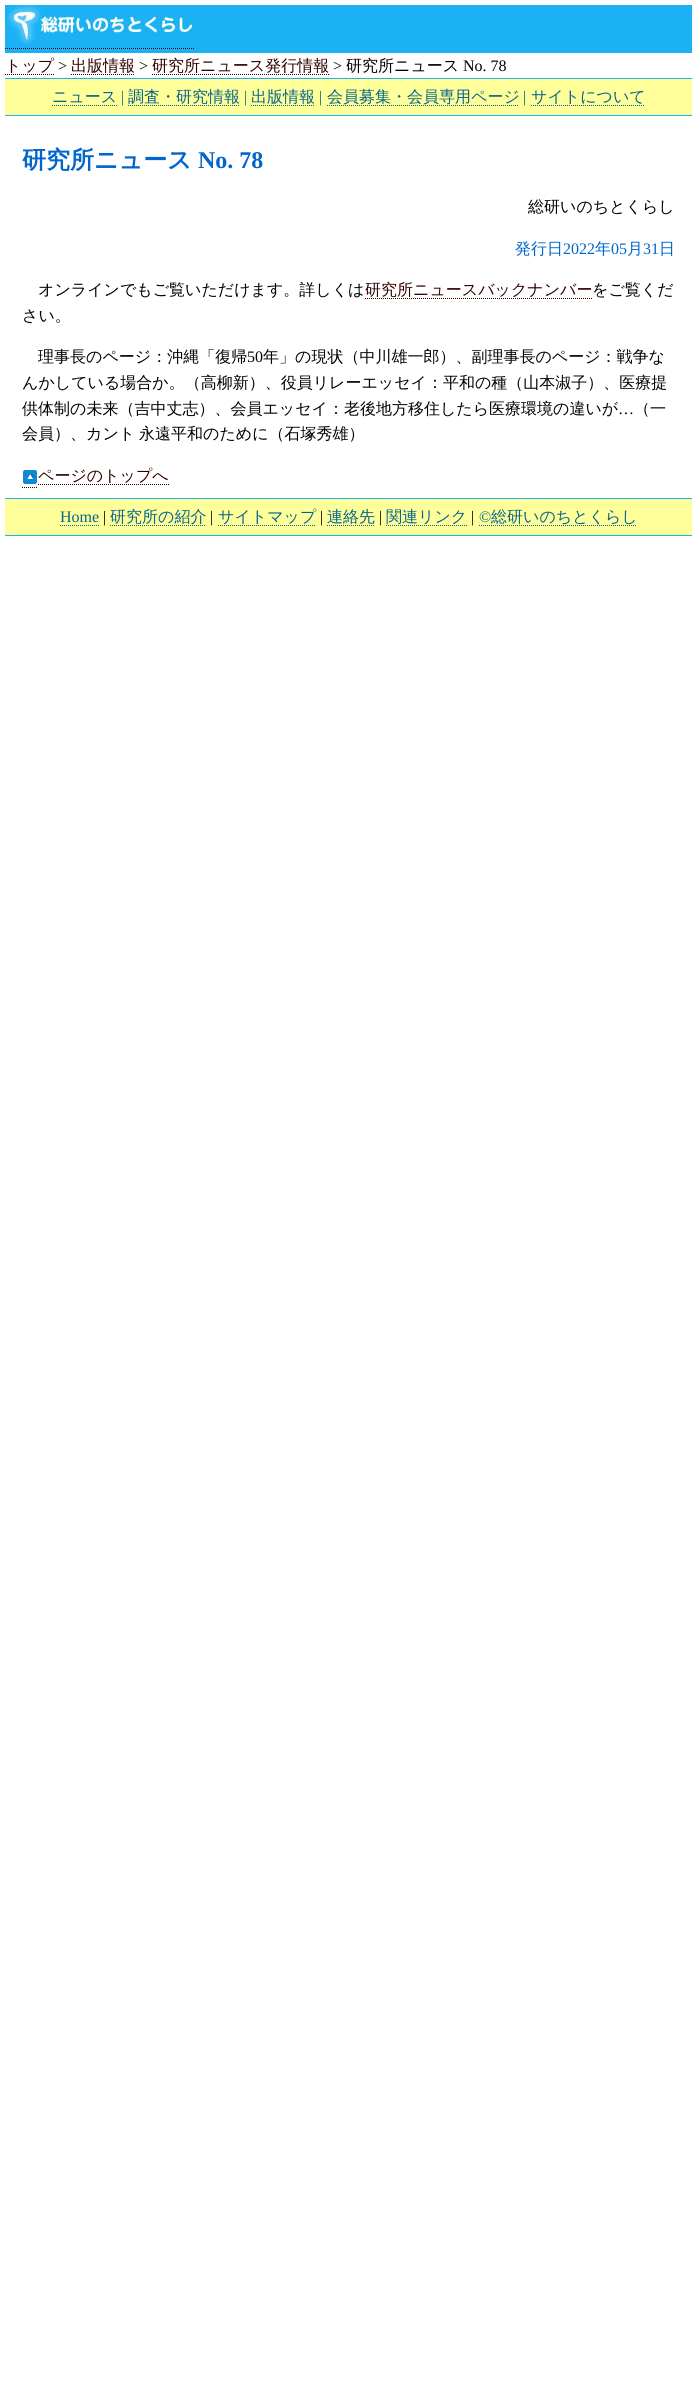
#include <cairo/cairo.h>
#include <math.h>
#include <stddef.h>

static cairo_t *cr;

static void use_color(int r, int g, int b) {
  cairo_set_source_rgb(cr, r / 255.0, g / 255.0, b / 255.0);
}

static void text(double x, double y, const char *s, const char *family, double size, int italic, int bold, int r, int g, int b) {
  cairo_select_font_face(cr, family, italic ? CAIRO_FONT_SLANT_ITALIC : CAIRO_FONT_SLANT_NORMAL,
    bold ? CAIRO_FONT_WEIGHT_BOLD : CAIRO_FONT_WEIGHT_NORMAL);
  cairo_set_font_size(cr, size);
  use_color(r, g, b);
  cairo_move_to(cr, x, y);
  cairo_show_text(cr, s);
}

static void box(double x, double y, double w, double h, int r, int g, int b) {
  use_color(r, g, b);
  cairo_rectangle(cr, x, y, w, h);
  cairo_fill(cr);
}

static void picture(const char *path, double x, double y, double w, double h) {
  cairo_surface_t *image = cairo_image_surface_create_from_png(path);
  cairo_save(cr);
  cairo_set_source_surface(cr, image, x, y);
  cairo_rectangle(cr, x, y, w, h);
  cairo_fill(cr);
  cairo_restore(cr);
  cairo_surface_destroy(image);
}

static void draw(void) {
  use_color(255, 255, 255);
  cairo_paint(cr);
  box(5, 5, 687, 48, 28, 177, 245);
  picture("img_01.png", 5, 5, 190, 40);
  cairo_new_path(cr);
  cairo_move_to(cr, 5, 48.5);
  cairo_line_to(cr, 195, 48.5);
  use_color(51, 0, 0);
  cairo_set_line_width(cr, 1);
  cairo_set_dash(cr, (double[]){1, 1}, 2, 0);
  cairo_stroke(cr);
  cairo_new_path(cr);
  cairo_move_to(cr, 5, 74.5);
  cairo_line_to(cr, 54, 74.5);
  cairo_stroke(cr);
  cairo_new_path(cr);
  cairo_move_to(cr, 71, 74.5);
  cairo_line_to(cr, 135, 74.5);
  cairo_stroke(cr);
  cairo_new_path(cr);
  cairo_move_to(cr, 152, 74.5);
  cairo_line_to(cr, 329, 74.5);
  cairo_stroke(cr);
  box(5, 79, 687, 36, 255, 255, 153);
  box(5, 78, 687, 1, 28, 177, 245);
  box(5, 115, 687, 1, 28, 177, 245);
  cairo_new_path(cr);
  cairo_move_to(cr, 52, 105.5);
  cairo_line_to(cr, 117, 105.5);
  use_color(5, 99, 142);
  cairo_stroke(cr);
  cairo_new_path(cr);
  cairo_move_to(cr, 128, 105.5);
  cairo_line_to(cr, 240, 105.5);
  cairo_stroke(cr);
  cairo_new_path(cr);
  cairo_move_to(cr, 251, 105.5);
  cairo_line_to(cr, 315, 105.5);
  cairo_stroke(cr);
  cairo_new_path(cr);
  cairo_move_to(cr, 327, 105.5);
  cairo_line_to(cr, 519, 105.5);
  cairo_stroke(cr);
  cairo_new_path(cr);
  cairo_move_to(cr, 531, 105.5);
  cairo_line_to(cr, 645, 105.5);
  cairo_stroke(cr);
  cairo_new_path(cr);
  cairo_move_to(cr, 365, 298.5);
  cairo_line_to(cr, 592, 298.5);
  use_color(51, 0, 0);
  cairo_stroke(cr);
  picture("img_02.png", 23, 470, 14, 14);
  cairo_new_path(cr);
  cairo_move_to(cr, 22, 487.5);
  cairo_line_to(cr, 38, 487.5);
  cairo_stroke(cr);
  cairo_new_path(cr);
  cairo_move_to(cr, 38, 484.5);
  cairo_line_to(cr, 169, 484.5);
  cairo_stroke(cr);
  box(5, 499, 687, 36, 255, 255, 153);
  box(5, 498, 687, 1, 28, 177, 245);
  box(5, 535, 687, 1, 28, 177, 245);
  cairo_new_path(cr);
  cairo_move_to(cr, 60, 525.5);
  cairo_line_to(cr, 99, 525.5);
  use_color(5, 99, 142);
  cairo_stroke(cr);
  cairo_new_path(cr);
  cairo_move_to(cr, 110, 525.5);
  cairo_line_to(cr, 206, 525.5);
  cairo_stroke(cr);
  cairo_new_path(cr);
  cairo_move_to(cr, 218, 525.5);
  cairo_line_to(cr, 316, 525.5);
  cairo_stroke(cr);
  cairo_new_path(cr);
  cairo_move_to(cr, 327, 525.5);
  cairo_line_to(cr, 375, 525.5);
  cairo_stroke(cr);
  cairo_new_path(cr);
  cairo_move_to(cr, 386, 525.5);
  cairo_line_to(cr, 467, 525.5);
  cairo_stroke(cr);
  cairo_new_path(cr);
  cairo_move_to(cr, 479, 525.5);
  cairo_line_to(cr, 637, 525.5);
  cairo_stroke(cr);
  text(5, 71, "トップ", "WenQuanYi Zen Hei Medium", 16, 0, 0, 51, 0, 0);
  text(58, 71, ">", "Liberation Serif", 16, 0, 0, 0, 0, 0);
  text(71, 71, "出版情報", "WenQuanYi Zen Hei Medium", 16, 0, 0, 51, 0, 0);
  text(139, 71, ">", "Liberation Serif", 16, 0, 0, 0, 0, 0);
  text(152, 71, "研究所ニュース発行情報", "WenQuanYi Zen Hei Medium", 16, 0, 0, 51, 0, 0);
  text(333, 71, ">", "Liberation Serif", 16, 0, 0, 0, 0, 0);
  text(346, 71, "研究所ニュース", "WenQuanYi Zen Hei Medium", 16, 0, 0, 0, 0, 0);
  text(463, 71, "No. 78", "Liberation Serif", 16, 0, 0, 0, 0, 0);
  text(52, 102, "ニュース", "WenQuanYi Zen Hei Medium", 16, 0, 0, 5, 99, 142);
  text(121, 102, "|", "Liberation Serif", 16, 0, 0, 5, 99, 142);
  text(128, 102, "調査・研究情報", "WenQuanYi Zen Hei Medium", 16, 0, 0, 5, 99, 142);
  text(244, 102, "|", "Liberation Serif", 16, 0, 0, 5, 99, 142);
  text(251, 102, "出版情報", "WenQuanYi Zen Hei Medium", 16, 0, 0, 5, 99, 142);
  text(319, 102, "|", "Liberation Serif", 16, 0, 0, 5, 99, 142);
  text(327, 102, "会員募集・会員専用ページ", "WenQuanYi Zen Hei Medium", 16, 0, 0, 5, 99, 142);
  text(523, 102, "|", "Liberation Serif", 16, 0, 0, 5, 99, 142);
  text(531, 102, "サイトについて", "WenQuanYi Zen Hei Medium", 16, 0, 0, 5, 99, 142);
  text(22, 168, "研究所ニュース", "WenQuanYi Zen Hei", 24, 0, 1, 0, 102, 204);
  text(198, 168, "No. 78", "Liberation Serif", 24, 0, 1, 0, 102, 204);
  text(528, 212, "総研いのちとくらし", "WenQuanYi Zen Hei Medium", 16, 0, 0, 0, 0, 0);
  text(515, 254, "発行日", "WenQuanYi Zen Hei Medium", 16, 0, 0, 0, 102, 204);
  text(563, 254, "2022", "Liberation Serif", 16, 0, 0, 0, 102, 204);
  text(595, 254, "年", "WenQuanYi Zen Hei Medium", 16, 0, 0, 0, 102, 204);
  text(611, 254, "05", "Liberation Serif", 16, 0, 0, 0, 102, 204);
  text(627, 254, "月", "WenQuanYi Zen Hei Medium", 16, 0, 0, 0, 102, 204);
  text(643, 254, "31", "Liberation Serif", 16, 0, 0, 0, 102, 204);
  text(659, 254, "日", "WenQuanYi Zen Hei Medium", 16, 0, 0, 0, 102, 204);
  text(38, 295, "オンラインでもご覧いただけます。詳しくは", "WenQuanYi Zen Hei Medium", 16, 0, 0, 0, 0, 0);
  text(365, 295, "研究所ニュースバックナンバー", "WenQuanYi Zen Hei Medium", 16, 0, 0, 51, 0, 0);
  text(592, 295, "をご覧くだ", "WenQuanYi Zen Hei Medium", 16, 0, 0, 0, 0, 0);
  text(22, 321, "さい。", "WenQuanYi Zen Hei Medium", 16, 0, 0, 0, 0, 0);
  text(38, 362, "理事長のページ：沖縄「復帰", "WenQuanYi Zen Hei Medium", 16, 0, 0, 0, 0, 0);
  text(247, 362, "50", "Liberation Serif", 16, 0, 0, 0, 0, 0);
  text(263, 362, "年」の現状（中川雄一郎）、副理事長のページ：戦争な", "WenQuanYi Zen Hei Medium", 16, 0, 0, 0, 0, 0);
  text(22, 388, "んかしている場合か。（高柳新）、役員リレーエッセイ：平和の種（山本淑子）、医療提", "WenQuanYi Zen Hei Medium", 16, 0, 0, 0, 0, 0);
  text(22, 414, "供体制の未来（吉中丈志）、会員エッセイ：老後地方移住したら医療環境の違いが", "WenQuanYi Zen Hei Medium", 16, 0, 0, 0, 0, 0);
  text(618, 414, "…", "Liberation Serif", 16, 0, 0, 0, 0, 0);
  text(634, 414, "（一", "WenQuanYi Zen Hei Medium", 16, 0, 0, 0, 0, 0);
  text(22, 439, "会員）、カント", "WenQuanYi Zen Hei Medium", 16, 0, 0, 0, 0, 0);
  text(139, 439, "永遠平和のために（石塚秀雄）", "WenQuanYi Zen Hei Medium", 16, 0, 0, 0, 0, 0);
  text(38, 481, "ページのトップへ", "WenQuanYi Zen Hei Medium", 16, 0, 0, 51, 0, 0);
  text(60, 522, "Home", "Liberation Serif", 16, 0, 0, 5, 99, 142);
  text(103, 522, "|", "Liberation Serif", 16, 0, 0, 0, 0, 0);
  text(110, 522, "研究所の紹介", "WenQuanYi Zen Hei Medium", 16, 0, 0, 5, 99, 142);
  text(210, 522, "|", "Liberation Serif", 16, 0, 0, 0, 0, 0);
  text(218, 522, "サイトマップ", "WenQuanYi Zen Hei Medium", 16, 0, 0, 5, 99, 142);
  text(320, 522, "|", "Liberation Serif", 16, 0, 0, 0, 0, 0);
  text(327, 522, "連絡先", "WenQuanYi Zen Hei Medium", 16, 0, 0, 5, 99, 142);
  text(379, 522, "|", "Liberation Serif", 16, 0, 0, 0, 0, 0);
  text(386, 522, "関連リンク", "WenQuanYi Zen Hei Medium", 16, 0, 0, 5, 99, 142);
  text(471, 522, "|", "Liberation Serif", 16, 0, 0, 0, 0, 0);
  text(479, 522, "©", "Liberation Serif", 16, 0, 0, 5, 99, 142);
  text(491, 522, "総研いのちとくらし", "WenQuanYi Zen Hei Medium", 16, 0, 0, 5, 99, 142);
}

int main(void) {
  cairo_surface_t *surface = cairo_image_surface_create(CAIRO_FORMAT_RGB24, 697, 2388);
  cr = cairo_create(surface);
  cairo_font_options_t *options = cairo_font_options_create();
  cairo_font_options_set_hint_metrics(options, CAIRO_HINT_METRICS_OFF);
  cairo_font_options_set_hint_style(options, CAIRO_HINT_STYLE_NONE);
  cairo_set_font_options(cr, options);
  cairo_set_miter_limit(cr, 4);
  draw();
  cairo_surface_write_to_png(surface, "out.png");
  cairo_font_options_destroy(options);
  cairo_destroy(cr);
  cairo_surface_destroy(surface);
  return 0;
}
